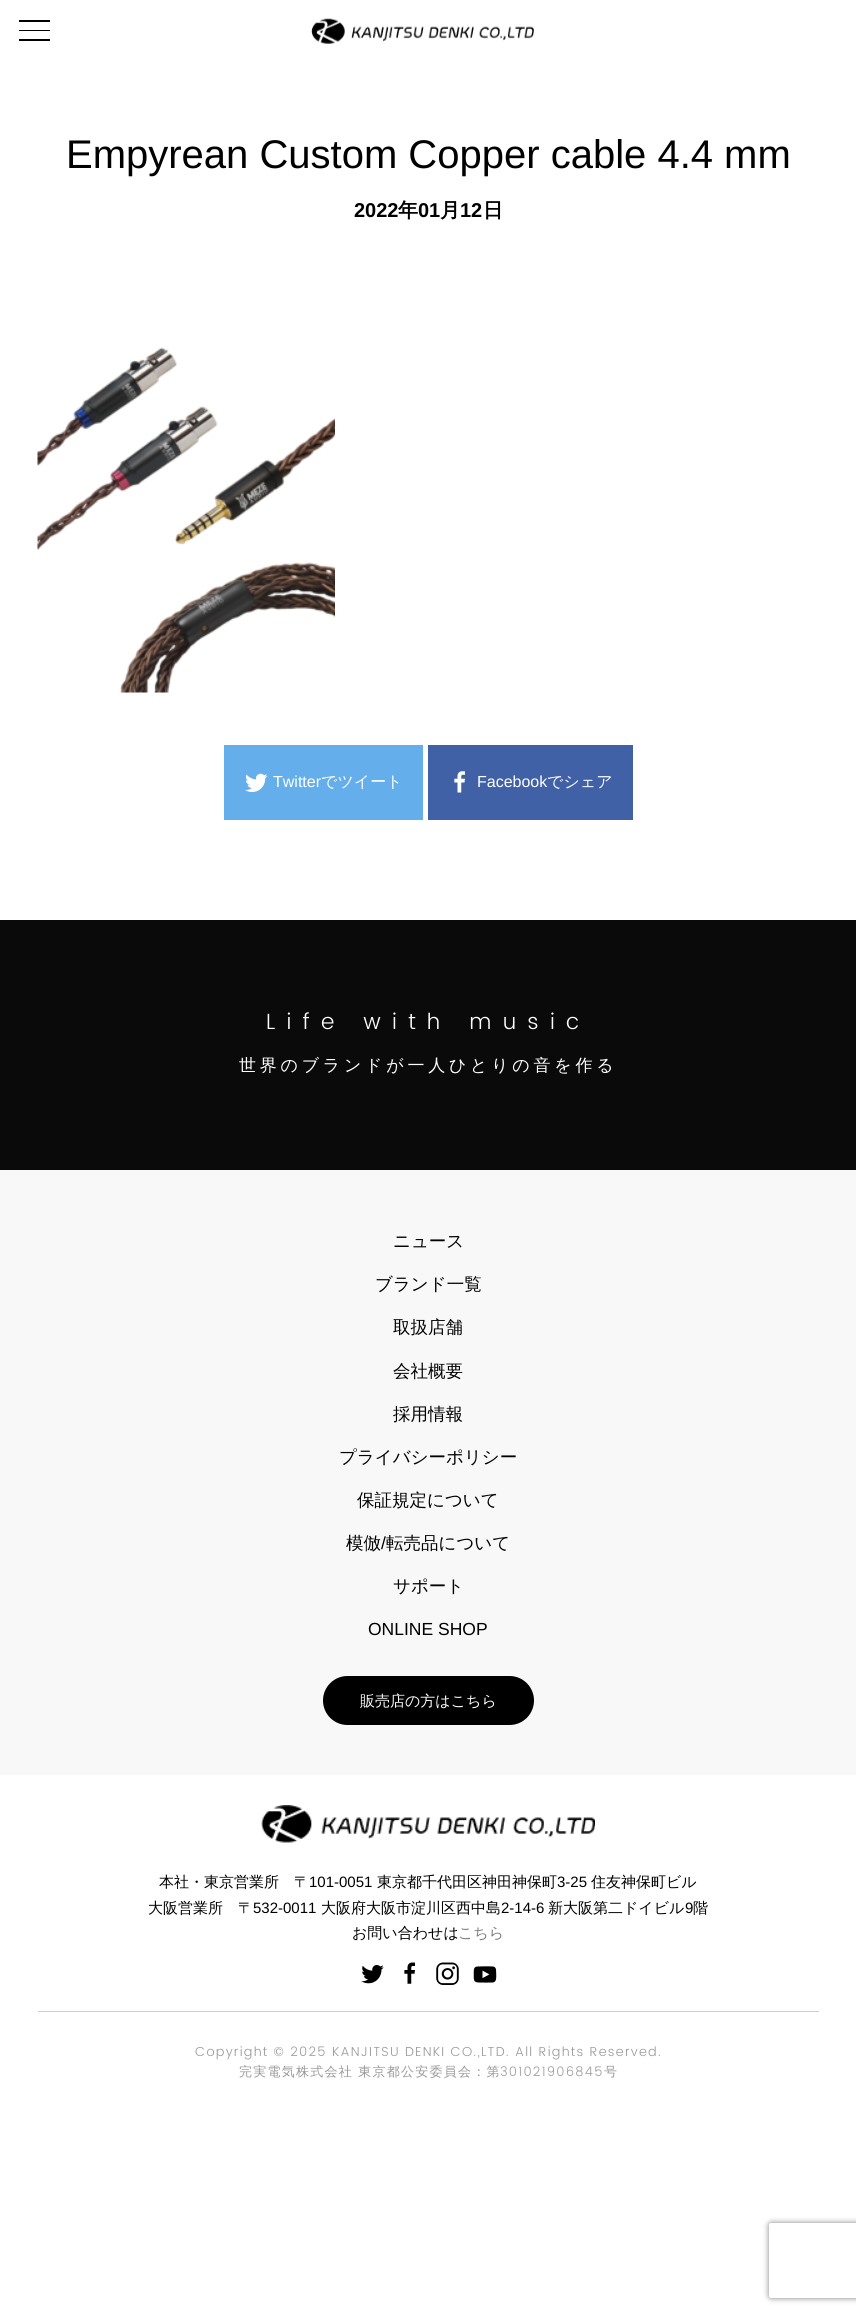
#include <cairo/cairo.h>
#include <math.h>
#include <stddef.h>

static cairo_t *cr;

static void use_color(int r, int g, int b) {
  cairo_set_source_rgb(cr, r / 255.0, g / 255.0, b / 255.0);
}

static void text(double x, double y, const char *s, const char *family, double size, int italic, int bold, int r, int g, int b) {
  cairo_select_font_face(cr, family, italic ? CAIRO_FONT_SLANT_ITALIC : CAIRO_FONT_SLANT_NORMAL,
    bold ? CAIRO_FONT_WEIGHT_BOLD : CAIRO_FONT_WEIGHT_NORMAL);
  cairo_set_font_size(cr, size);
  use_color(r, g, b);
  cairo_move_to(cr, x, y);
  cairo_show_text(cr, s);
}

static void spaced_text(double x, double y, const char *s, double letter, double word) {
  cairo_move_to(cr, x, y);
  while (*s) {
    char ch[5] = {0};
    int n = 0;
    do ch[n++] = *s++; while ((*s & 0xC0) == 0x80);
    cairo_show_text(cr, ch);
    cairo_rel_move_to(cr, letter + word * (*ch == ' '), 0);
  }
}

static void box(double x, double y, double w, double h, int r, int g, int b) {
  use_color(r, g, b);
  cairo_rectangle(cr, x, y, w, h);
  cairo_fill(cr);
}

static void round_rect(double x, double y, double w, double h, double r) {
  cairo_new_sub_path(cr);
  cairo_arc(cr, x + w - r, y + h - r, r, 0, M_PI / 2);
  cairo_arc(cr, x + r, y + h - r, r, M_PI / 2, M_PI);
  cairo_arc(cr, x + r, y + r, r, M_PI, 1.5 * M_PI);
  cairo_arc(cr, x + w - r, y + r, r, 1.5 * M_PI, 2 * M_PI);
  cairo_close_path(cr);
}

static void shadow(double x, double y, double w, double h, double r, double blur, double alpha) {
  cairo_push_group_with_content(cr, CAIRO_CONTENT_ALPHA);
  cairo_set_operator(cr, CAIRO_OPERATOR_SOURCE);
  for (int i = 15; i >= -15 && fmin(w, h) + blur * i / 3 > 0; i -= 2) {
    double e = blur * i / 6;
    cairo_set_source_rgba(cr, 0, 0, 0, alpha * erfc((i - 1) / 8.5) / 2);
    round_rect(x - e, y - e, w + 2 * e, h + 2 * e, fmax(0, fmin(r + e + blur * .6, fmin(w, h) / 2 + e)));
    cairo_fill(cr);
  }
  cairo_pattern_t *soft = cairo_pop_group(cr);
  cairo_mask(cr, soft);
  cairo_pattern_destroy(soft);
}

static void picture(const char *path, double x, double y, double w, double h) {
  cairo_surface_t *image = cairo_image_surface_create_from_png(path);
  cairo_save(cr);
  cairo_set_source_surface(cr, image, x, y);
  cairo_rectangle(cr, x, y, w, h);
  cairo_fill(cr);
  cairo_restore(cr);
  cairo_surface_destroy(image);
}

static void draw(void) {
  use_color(255, 255, 255);
  cairo_paint(cr);
  box(19, 30, 31, 1, 0, 0, 0);
  box(19, 20, 31, 2, 0, 0, 0);
  box(19, 39, 31, 2, 0, 0, 0);
  picture("img_01.png", 311, 18, 223, 26);
  picture("img_02.png", 37, 347, 298, 346);
  box(224, 745, 199, 75, 100, 174, 235);
  picture("img_03.png", 245, 773, 23, 19);
  box(428, 745, 205, 75, 64, 97, 166);
  picture("img_04.png", 454, 771, 11, 22);
  box(0, 920, 856, 250, 10, 10, 10);
  box(0, 1170, 856, 605, 248, 248, 248);
  use_color(0, 0, 0);
  round_rect(323, 1676, 211, 49, 24.5);
  cairo_fill(cr);
  picture("img_05.png", 261, 1805, 334, 38);
  picture("img_06.png", 361, 1965, 23, 19);
  picture("img_07.png", 404, 1962, 11, 22);
  picture("img_08.png", 436, 1962, 23, 23);
  picture("img_09.png", 473, 1966, 24, 17);
  box(38, 2011, 781, 1, 204, 204, 204);
  cairo_save(cr);
  cairo_set_fill_rule(cr, CAIRO_FILL_RULE_EVEN_ODD);
  cairo_new_path(cr);
  cairo_move_to(cr, 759, 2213);
  cairo_line_to(cr, 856, 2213);
  cairo_line_to(cr, 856, 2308);
  cairo_line_to(cr, 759, 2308);
  cairo_close_path(cr);
  cairo_move_to(cr, 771.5, 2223);
  cairo_line_to(cr, 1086.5, 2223);
  cairo_curve_to(cr, 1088, 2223, 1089, 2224, 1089, 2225.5);
  cairo_line_to(cr, 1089, 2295.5);
  cairo_curve_to(cr, 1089, 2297, 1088, 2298, 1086.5, 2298);
  cairo_line_to(cr, 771.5, 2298);
  cairo_curve_to(cr, 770, 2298, 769, 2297, 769, 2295.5);
  cairo_line_to(cr, 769, 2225.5);
  cairo_curve_to(cr, 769, 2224, 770, 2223, 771.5, 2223);
  cairo_close_path(cr);
  cairo_clip(cr);
  use_color(128, 128, 128);
  shadow(769, 2223, 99, 75, 2.5, 3, 1);
  cairo_restore(cr);
  text(66, 168, "Empyrean Custom Copper cable 4.4 mm", "Liberation Sans", 40, 0, 0, 0, 0, 0);
  text(354, 217, "2022", "Liberation Sans", 20, 0, 1, 0, 0, 0);
  text(398, 217, "年", "WenQuanYi Zen Hei", 20, 0, 1, 0, 0, 0);
  text(418, 217, "01", "Liberation Sans", 20, 0, 1, 0, 0, 0);
  text(440, 217, "月", "WenQuanYi Zen Hei", 20, 0, 1, 0, 0, 0);
  text(460, 217, "12", "Liberation Sans", 20, 0, 1, 0, 0, 0);
  text(483, 217, "日", "WenQuanYi Zen Hei", 20, 0, 1, 0, 0, 0);
  text(273, 787, "Twitter", "Liberation Sans", 16, 0, 0, 255, 255, 255);
  text(321, 787, "でツイート", "WenQuanYi Zen Hei Medium", 16, 0, 0, 255, 255, 255);
  text(477, 787, "Facebook", "Liberation Sans", 16, 0, 0, 255, 255, 255);
  text(547, 787, "でシェア", "WenQuanYi Zen Hei Medium", 16, 0, 0, 255, 255, 255);
  cairo_select_font_face(cr, "Poppins Light", CAIRO_FONT_SLANT_NORMAL, CAIRO_FONT_WEIGHT_NORMAL);
  cairo_set_font_size(cr, 22);
  spaced_text(266, 1029, "Life with music", 11.25, 0);
  cairo_select_font_face(cr, "WenQuanYi Zen Hei Medium", CAIRO_FONT_SLANT_NORMAL, CAIRO_FONT_WEIGHT_NORMAL);
  cairo_set_font_size(cr, 17);
  spaced_text(239, 1071, "世界のブランドが一人ひとりの音を作る", 3.75, 0);
  text(393, 1247, "ニュース", "WenQuanYi Zen Hei Medium", 17.5, 0, 0, 0, 0, 0);
  text(375, 1290, "ブランド一覧", "WenQuanYi Zen Hei Medium", 17.5, 0, 0, 0, 0, 0);
  text(393, 1333, "取扱店舗", "WenQuanYi Zen Hei Medium", 17.5, 0, 0, 0, 0, 0);
  text(393, 1377, "会社概要", "WenQuanYi Zen Hei Medium", 17.5, 0, 0, 0, 0, 0);
  text(393, 1420, "採用情報", "WenQuanYi Zen Hei Medium", 17.5, 0, 0, 0, 0, 0);
  text(339, 1463, "プライバシーポリシー", "WenQuanYi Zen Hei Medium", 17.5, 0, 0, 0, 0, 0);
  text(357, 1506, "保証規定について", "WenQuanYi Zen Hei Medium", 17.5, 0, 0, 0, 0, 0);
  text(346, 1549, "模倣", "WenQuanYi Zen Hei Medium", 17.5, 0, 0, 0, 0, 0);
  text(381, 1549, "/", "Liberation Sans", 17.5, 0, 0, 0, 0, 0);
  text(386, 1549, "転売品について", "WenQuanYi Zen Hei Medium", 17.5, 0, 0, 0, 0, 0);
  text(393, 1592, "サポート", "WenQuanYi Zen Hei Medium", 17.5, 0, 0, 0, 0, 0);
  text(368, 1635, "ONLINE SHOP", "Liberation Sans", 17.5, 0, 0, 0, 0, 0);
  text(360, 1706, "販売店の方はこちら", "WenQuanYi Zen Hei Medium", 15, 0, 0, 255, 255, 255);
  text(159, 1887, "本社・東京営業所", "WenQuanYi Zen Hei Medium", 15, 0, 0, 0, 0, 0);
  text(294, 1887, "〒", "WenQuanYi Zen Hei Medium", 15, 0, 0, 0, 0, 0);
  text(309, 1887, "101-0051", "Liberation Sans", 15, 0, 0, 0, 0, 0);
  text(377, 1887, "東京都千代田区神田神保町", "WenQuanYi Zen Hei Medium", 15, 0, 0, 0, 0, 0);
  text(557, 1887, "3-25", "Liberation Sans", 15, 0, 0, 0, 0, 0);
  text(591, 1887, "住友神保町ビル", "WenQuanYi Zen Hei Medium", 15, 0, 0, 0, 0, 0);
  text(148, 1913, "大阪営業所", "WenQuanYi Zen Hei Medium", 15, 0, 0, 0, 0, 0);
  text(238, 1913, "〒", "WenQuanYi Zen Hei Medium", 15, 0, 0, 0, 0, 0);
  text(253, 1913, "532-0011", "Liberation Sans", 15, 0, 0, 0, 0, 0);
  text(321, 1913, "大阪府大阪市淀川区西中島", "WenQuanYi Zen Hei Medium", 15, 0, 0, 0, 0, 0);
  text(501, 1913, "2-14-6", "Liberation Sans", 15, 0, 0, 0, 0, 0);
  text(548, 1913, "新大阪第二ドイビル", "WenQuanYi Zen Hei Medium", 15, 0, 0, 0, 0, 0);
  text(685, 1913, "9", "Liberation Sans", 15, 0, 0, 0, 0, 0);
  text(693, 1913, "階", "WenQuanYi Zen Hei Medium", 15, 0, 0, 0, 0, 0);
  text(352, 1938, "お問い合わせは", "WenQuanYi Zen Hei Medium", 15, 0, 0, 0, 0, 0);
  text(458, 1938, "こちら", "WenQuanYi Zen Hei Medium", 15, 0, 0, 125, 125, 124);
  cairo_select_font_face(cr, "Poppins Light", CAIRO_FONT_SLANT_NORMAL, CAIRO_FONT_WEIGHT_NORMAL);
  cairo_set_font_size(cr, 13);
  use_color(153, 153, 153);
  spaced_text(195, 2056, "Copyright © 2025 KANJITSU DENKI CO.,LTD. All Rights Reserved.", 1.25, 0);
  cairo_select_font_face(cr, "WenQuanYi Zen Hei Medium", CAIRO_FONT_SLANT_NORMAL, CAIRO_FONT_WEIGHT_NORMAL);
  spaced_text(239, 2076, "完実電気株式会社 東京都公安委員会：第", 1.25, 0);
  cairo_select_font_face(cr, "Poppins Light", CAIRO_FONT_SLANT_NORMAL, CAIRO_FONT_WEIGHT_NORMAL);
  spaced_text(500, 2076, "301021906845", 1.25, 0);
  cairo_select_font_face(cr, "WenQuanYi Zen Hei Medium", CAIRO_FONT_SLANT_NORMAL, CAIRO_FONT_WEIGHT_NORMAL);
  spaced_text(604, 2076, "号", 1.25, 0);
}

int main(void) {
  cairo_surface_t *surface = cairo_image_surface_create(CAIRO_FORMAT_RGB24, 856, 2314);
  cr = cairo_create(surface);
  cairo_font_options_t *options = cairo_font_options_create();
  cairo_font_options_set_hint_metrics(options, CAIRO_HINT_METRICS_OFF);
  cairo_font_options_set_hint_style(options, CAIRO_HINT_STYLE_NONE);
  cairo_set_font_options(cr, options);
  cairo_set_miter_limit(cr, 4);
  draw();
  cairo_surface_write_to_png(surface, "out.png");
  cairo_font_options_destroy(options);
  cairo_destroy(cr);
  cairo_surface_destroy(surface);
  return 0;
}
